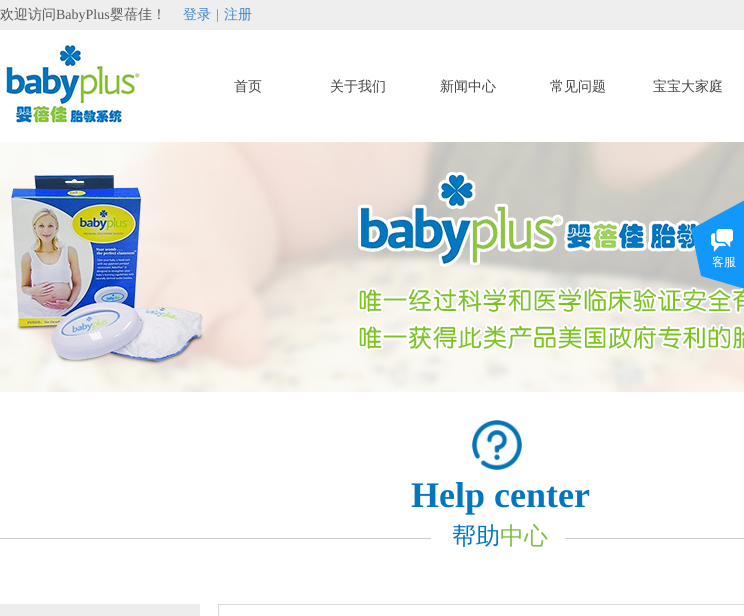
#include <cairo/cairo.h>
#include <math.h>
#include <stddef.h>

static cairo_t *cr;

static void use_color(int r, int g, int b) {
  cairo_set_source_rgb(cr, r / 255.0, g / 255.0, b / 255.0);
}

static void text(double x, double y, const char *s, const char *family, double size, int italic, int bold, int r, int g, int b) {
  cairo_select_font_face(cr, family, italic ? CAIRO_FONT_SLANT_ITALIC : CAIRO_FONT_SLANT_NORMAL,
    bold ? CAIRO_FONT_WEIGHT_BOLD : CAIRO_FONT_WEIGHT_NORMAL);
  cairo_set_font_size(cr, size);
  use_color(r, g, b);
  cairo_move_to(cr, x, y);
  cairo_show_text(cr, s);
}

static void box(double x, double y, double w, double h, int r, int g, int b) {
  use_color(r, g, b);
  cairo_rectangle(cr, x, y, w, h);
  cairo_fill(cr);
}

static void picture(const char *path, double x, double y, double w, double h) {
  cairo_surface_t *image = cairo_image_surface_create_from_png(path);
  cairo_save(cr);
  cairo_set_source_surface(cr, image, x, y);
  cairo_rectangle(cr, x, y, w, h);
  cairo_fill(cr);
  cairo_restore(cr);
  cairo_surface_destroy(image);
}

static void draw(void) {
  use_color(255, 255, 255);
  cairo_paint(cr);
  box(0, 0, 744, 30, 238, 238, 238);
  picture("img_01.png", 5, 43, 138, 83);
  picture("img_02.png", 0, 142, 744, 250);
  picture("img_03.png", 472, 420, 50, 50);
  box(0, 538, 431, 1, 204, 204, 204);
  box(565, 538, 179, 1, 204, 204, 204);
  box(0, 604, 200, 12, 237, 237, 237);
  cairo_rectangle(cr, 218.5, 604.5, 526, 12);
  use_color(217, 217, 217);
  cairo_set_line_width(cr, 1);
  cairo_stroke(cr);
  picture("img_04.png", 691, 200, 53, 89);
  text(0, 19, "欢迎访问", "WenQuanYi Zen Hei Medium", 14, 0, 0, 90, 90, 90);
  text(56, 19, "BabyPlus", "Liberation Serif", 14, 0, 0, 90, 90, 90);
  text(110, 19, "婴蓓佳！", "WenQuanYi Zen Hei Medium", 14, 0, 0, 90, 90, 90);
  text(183, 19, "登录", "WenQuanYi Zen Hei Medium", 14, 0, 0, 61, 133, 198);
  text(216, 19, "|", "Liberation Serif", 14, 0, 0, 61, 133, 198);
  text(224, 19, "注册", "WenQuanYi Zen Hei Medium", 14, 0, 0, 61, 133, 198);
  text(234, 91, "首页", "WenQuanYi Zen Hei Medium", 14, 0, 0, 67, 67, 67);
  text(330, 91, "关于我们", "WenQuanYi Zen Hei Medium", 14, 0, 0, 67, 67, 67);
  text(440, 91, "新闻中心", "WenQuanYi Zen Hei Medium", 14, 0, 0, 67, 67, 67);
  text(550, 91, "常见问题", "WenQuanYi Zen Hei Medium", 14, 0, 0, 67, 67, 67);
  text(653, 91, "宝宝大家庭", "WenQuanYi Zen Hei Medium", 14, 0, 0, 67, 67, 67);
  text(411, 507, "Help center", "Liberation Serif", 36, 0, 1, 2, 119, 192);
  text(452, 544, "帮助", "WenQuanYi Zen Hei Medium", 24, 0, 0, 2, 119, 192);
  text(500, 544, "中心", "WenQuanYi Zen Hei Medium", 24, 0, 0, 126, 193, 69);
  text(712, 266, "客服", "WenQuanYi Zen Hei Medium", 12, 0, 0, 255, 255, 255);
}

int main(void) {
  cairo_surface_t *surface = cairo_image_surface_create(CAIRO_FORMAT_RGB24, 744, 616);
  cr = cairo_create(surface);
  cairo_font_options_t *options = cairo_font_options_create();
  cairo_font_options_set_hint_metrics(options, CAIRO_HINT_METRICS_OFF);
  cairo_font_options_set_hint_style(options, CAIRO_HINT_STYLE_NONE);
  cairo_set_font_options(cr, options);
  cairo_set_miter_limit(cr, 4);
  draw();
  cairo_surface_write_to_png(surface, "out.png");
  cairo_font_options_destroy(options);
  cairo_destroy(cr);
  cairo_surface_destroy(surface);
  return 0;
}
